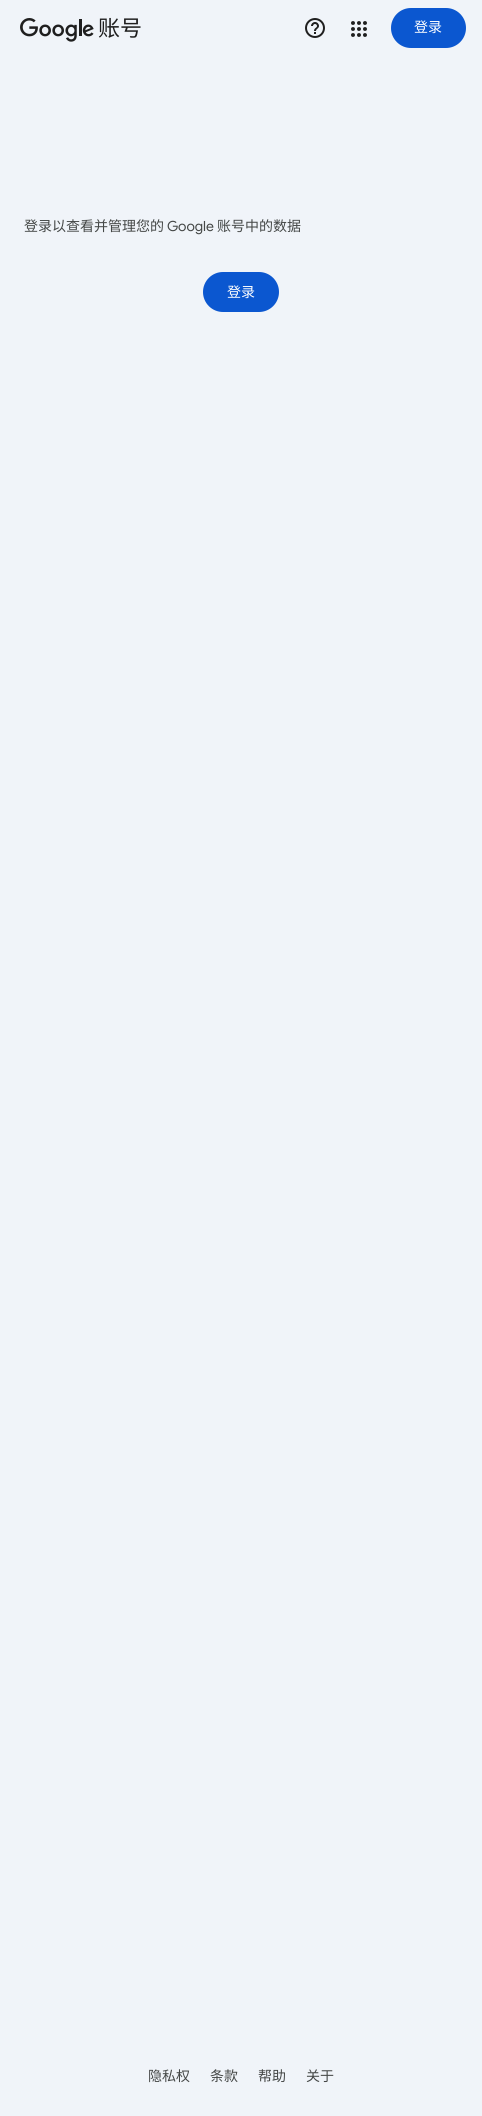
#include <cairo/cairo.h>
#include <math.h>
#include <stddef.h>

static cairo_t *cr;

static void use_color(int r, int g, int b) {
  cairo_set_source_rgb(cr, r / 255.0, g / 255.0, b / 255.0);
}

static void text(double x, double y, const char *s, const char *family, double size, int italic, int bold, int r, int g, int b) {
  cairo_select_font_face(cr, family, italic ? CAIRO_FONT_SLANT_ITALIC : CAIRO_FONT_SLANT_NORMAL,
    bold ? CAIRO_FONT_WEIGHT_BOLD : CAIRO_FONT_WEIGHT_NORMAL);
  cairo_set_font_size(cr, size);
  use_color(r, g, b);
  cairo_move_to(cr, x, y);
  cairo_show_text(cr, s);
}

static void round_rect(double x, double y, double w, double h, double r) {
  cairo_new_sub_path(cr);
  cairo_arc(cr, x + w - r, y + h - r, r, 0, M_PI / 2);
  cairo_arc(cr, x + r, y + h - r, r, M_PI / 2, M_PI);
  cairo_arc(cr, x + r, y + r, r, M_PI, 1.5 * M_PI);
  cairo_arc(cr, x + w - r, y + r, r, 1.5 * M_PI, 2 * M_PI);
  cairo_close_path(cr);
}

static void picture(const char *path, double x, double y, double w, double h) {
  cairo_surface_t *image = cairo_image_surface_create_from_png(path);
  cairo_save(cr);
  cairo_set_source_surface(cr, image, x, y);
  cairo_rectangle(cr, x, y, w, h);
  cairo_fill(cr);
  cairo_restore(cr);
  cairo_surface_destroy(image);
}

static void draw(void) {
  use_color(240, 244, 249);
  cairo_paint(cr);
  picture("img_01.png", 20, 18, 74, 24);
  picture("img_02.png", 305, 18, 20, 20);
  picture("img_03.png", 351, 21, 16, 16);
  use_color(11, 87, 208);
  round_rect(391, 8, 75, 40, 20);
  cairo_fill(cr);
  round_rect(203, 272, 76, 40, 20);
  cairo_fill(cr);
  text(98, 36, "账号", "Noto Sans CJK SC", 22, 0, 0, 31, 31, 31);
  text(414, 32, "登录", "Noto Sans CJK SC", 14, 0, 0, 255, 255, 255);
  text(24, 231, "登录以查看并管理您的", "Noto Sans CJK SC", 14, 0, 0, 68, 71, 70);
  text(167, 231, "Google", "Google Sans", 14, 0, 0, 68, 71, 70);
  text(217, 231, "账号中的数据", "Noto Sans CJK SC", 14, 0, 0, 68, 71, 70);
  text(227, 297, "登录", "Noto Sans CJK SC", 14, 0, 0, 255, 255, 255);
  text(148, 2081, "隐私权", "Noto Sans CJK SC", 14, 0, 0, 68, 71, 70);
  text(210, 2081, "条款", "Noto Sans CJK SC", 14, 0, 0, 68, 71, 70);
  text(258, 2081, "帮助", "Noto Sans CJK SC", 14, 0, 0, 68, 71, 70);
  text(306, 2081, "关于", "Noto Sans CJK SC", 14, 0, 0, 68, 71, 70);
}

int main(void) {
  cairo_surface_t *surface = cairo_image_surface_create(CAIRO_FORMAT_RGB24, 482, 2116);
  cr = cairo_create(surface);
  cairo_font_options_t *options = cairo_font_options_create();
  cairo_font_options_set_hint_metrics(options, CAIRO_HINT_METRICS_OFF);
  cairo_font_options_set_hint_style(options, CAIRO_HINT_STYLE_NONE);
  cairo_set_font_options(cr, options);
  cairo_set_miter_limit(cr, 4);
  draw();
  cairo_surface_write_to_png(surface, "out.png");
  cairo_font_options_destroy(options);
  cairo_destroy(cr);
  cairo_surface_destroy(surface);
  return 0;
}
